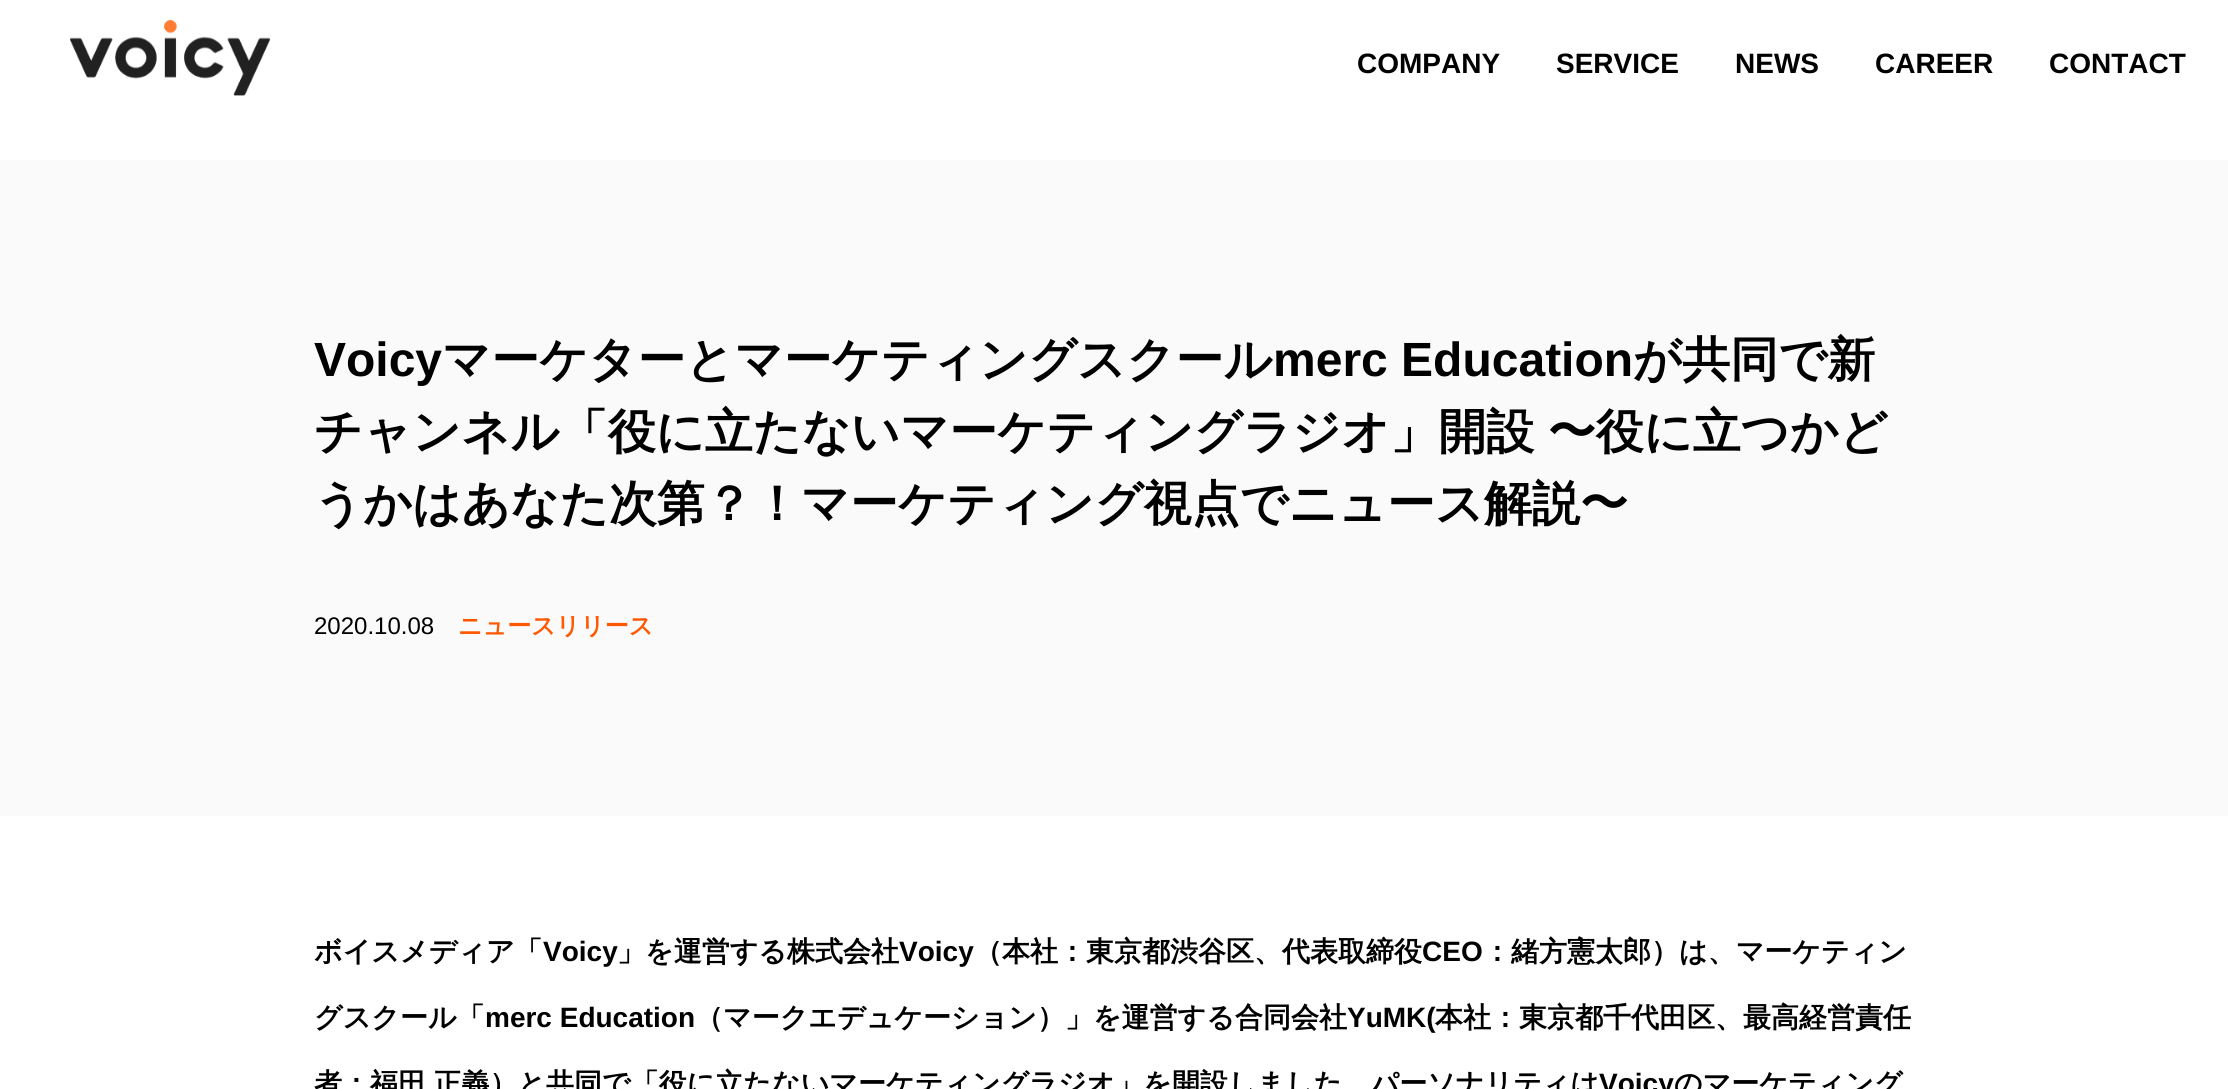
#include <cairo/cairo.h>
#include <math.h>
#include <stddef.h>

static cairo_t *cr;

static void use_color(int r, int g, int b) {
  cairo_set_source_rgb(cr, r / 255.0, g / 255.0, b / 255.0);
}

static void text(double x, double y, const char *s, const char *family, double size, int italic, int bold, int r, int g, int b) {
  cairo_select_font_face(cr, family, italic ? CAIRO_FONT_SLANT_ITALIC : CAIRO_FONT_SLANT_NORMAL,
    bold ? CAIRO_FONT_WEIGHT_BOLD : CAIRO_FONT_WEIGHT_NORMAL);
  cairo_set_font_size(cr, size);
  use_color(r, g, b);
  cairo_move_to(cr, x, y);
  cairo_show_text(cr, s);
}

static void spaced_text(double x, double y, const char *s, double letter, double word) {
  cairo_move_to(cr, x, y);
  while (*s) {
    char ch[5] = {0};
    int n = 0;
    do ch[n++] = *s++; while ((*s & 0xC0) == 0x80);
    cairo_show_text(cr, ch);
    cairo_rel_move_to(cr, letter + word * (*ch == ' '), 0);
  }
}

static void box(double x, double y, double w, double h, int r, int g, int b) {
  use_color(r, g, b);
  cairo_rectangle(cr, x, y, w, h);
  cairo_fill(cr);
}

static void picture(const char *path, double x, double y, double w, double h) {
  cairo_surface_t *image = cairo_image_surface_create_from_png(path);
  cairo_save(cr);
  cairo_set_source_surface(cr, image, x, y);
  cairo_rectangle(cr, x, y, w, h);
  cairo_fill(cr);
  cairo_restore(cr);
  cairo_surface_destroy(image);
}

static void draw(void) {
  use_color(255, 255, 255);
  cairo_paint(cr);
  picture("img_01.png", 70, 20, 200, 76);
  box(0, 160, 2228, 656, 250, 250, 250);
  text(1357, 73, "COMPANY", "Liberation Sans", 28, 0, 1, 0, 0, 0);
  text(1556, 73, "SERVICE", "Liberation Sans", 28, 0, 1, 0, 0, 0);
  text(1735, 73, "NEWS", "Liberation Sans", 28, 0, 1, 0, 0, 0);
  text(1875, 73, "CAREER", "Liberation Sans", 28, 0, 1, 0, 0, 0);
  text(2049, 73, "CONTACT", "Liberation Sans", 28, 0, 1, 0, 0, 0);
  text(314, 376, "Voicy", "Liberation Sans", 48, 0, 1, 0, 0, 0);
  text(442, 376, "マーケターとマーケティングスクール", "WenQuanYi Zen Hei", 48, 0, 1, 0, 0, 0);
  text(1273, 376, "merc Education", "Liberation Sans", 48, 0, 1, 0, 0, 0);
  text(1633, 376, "が共同で新", "WenQuanYi Zen Hei", 48, 0, 1, 0, 0, 0);
  spaced_text(314, 448, "チャンネル「役に立たないマーケティングラジオ」開設 〜役に立つかど", 0, -1);
  text(314, 520, "うかはあなた次第？！マーケティング視点でニュース解説〜", "WenQuanYi Zen Hei", 48, 0, 1, 0, 0, 0);
  text(314, 634, "2020.10.08", "Liberation Sans", 24, 0, 0, 0, 0, 0);
  text(458, 634, "ニュースリリース", "WenQuanYi Zen Hei", 24, 0, 1, 255, 88, 0);
  text(314, 961, "ボイスメディア「", "WenQuanYi Zen Hei", 28, 0, 1, 0, 0, 0);
  text(543, 961, "Voicy", "Liberation Sans", 28, 0, 1, 0, 0, 0);
  text(617, 961, "」を運営する株式会社", "WenQuanYi Zen Hei", 28, 0, 1, 0, 0, 0);
  text(899, 961, "Voicy", "Liberation Sans", 28, 0, 1, 0, 0, 0);
  text(974, 961, "（本社：東京都渋谷区、代表取締役", "WenQuanYi Zen Hei", 28, 0, 1, 0, 0, 0);
  text(1422, 961, "CEO", "Liberation Sans", 28, 0, 1, 0, 0, 0);
  text(1483, 961, "：緒方憲太郎）は、マーケティン", "WenQuanYi Zen Hei", 28, 0, 1, 0, 0, 0);
  text(314, 1027, "グスクール「", "WenQuanYi Zen Hei", 28, 0, 1, 0, 0, 0);
  text(485, 1027, "merc Education", "Liberation Sans", 28, 0, 1, 0, 0, 0);
  text(695, 1027, "（マークエデュケーション）」を運営する合同会社", "WenQuanYi Zen Hei", 28, 0, 1, 0, 0, 0);
  text(1347, 1027, "YuMK(", "Liberation Sans", 28, 0, 1, 0, 0, 0);
  text(1435, 1027, "本社：東京都千代田区、最高経営責任", "WenQuanYi Zen Hei", 28, 0, 1, 0, 0, 0);
  spaced_text(314, 1093, "者：福田 正義）と共同で「役に立たないマーケティングラジオ」を開設しました。パーソナリティは", 0, -1);
  text(1599, 1093, "Voicy", "Liberation Sans", 28, 0, 1, 0, 0, 0);
  text(1674, 1093, "のマーケティング", "WenQuanYi Zen Hei", 28, 0, 1, 0, 0, 0);
}

int main(void) {
  cairo_surface_t *surface = cairo_image_surface_create(CAIRO_FORMAT_RGB24, 2228, 1089);
  cr = cairo_create(surface);
  cairo_font_options_t *options = cairo_font_options_create();
  cairo_font_options_set_hint_metrics(options, CAIRO_HINT_METRICS_OFF);
  cairo_font_options_set_hint_style(options, CAIRO_HINT_STYLE_NONE);
  cairo_set_font_options(cr, options);
  cairo_set_miter_limit(cr, 4);
  draw();
  cairo_surface_write_to_png(surface, "out.png");
  cairo_font_options_destroy(options);
  cairo_destroy(cr);
  cairo_surface_destroy(surface);
  return 0;
}
